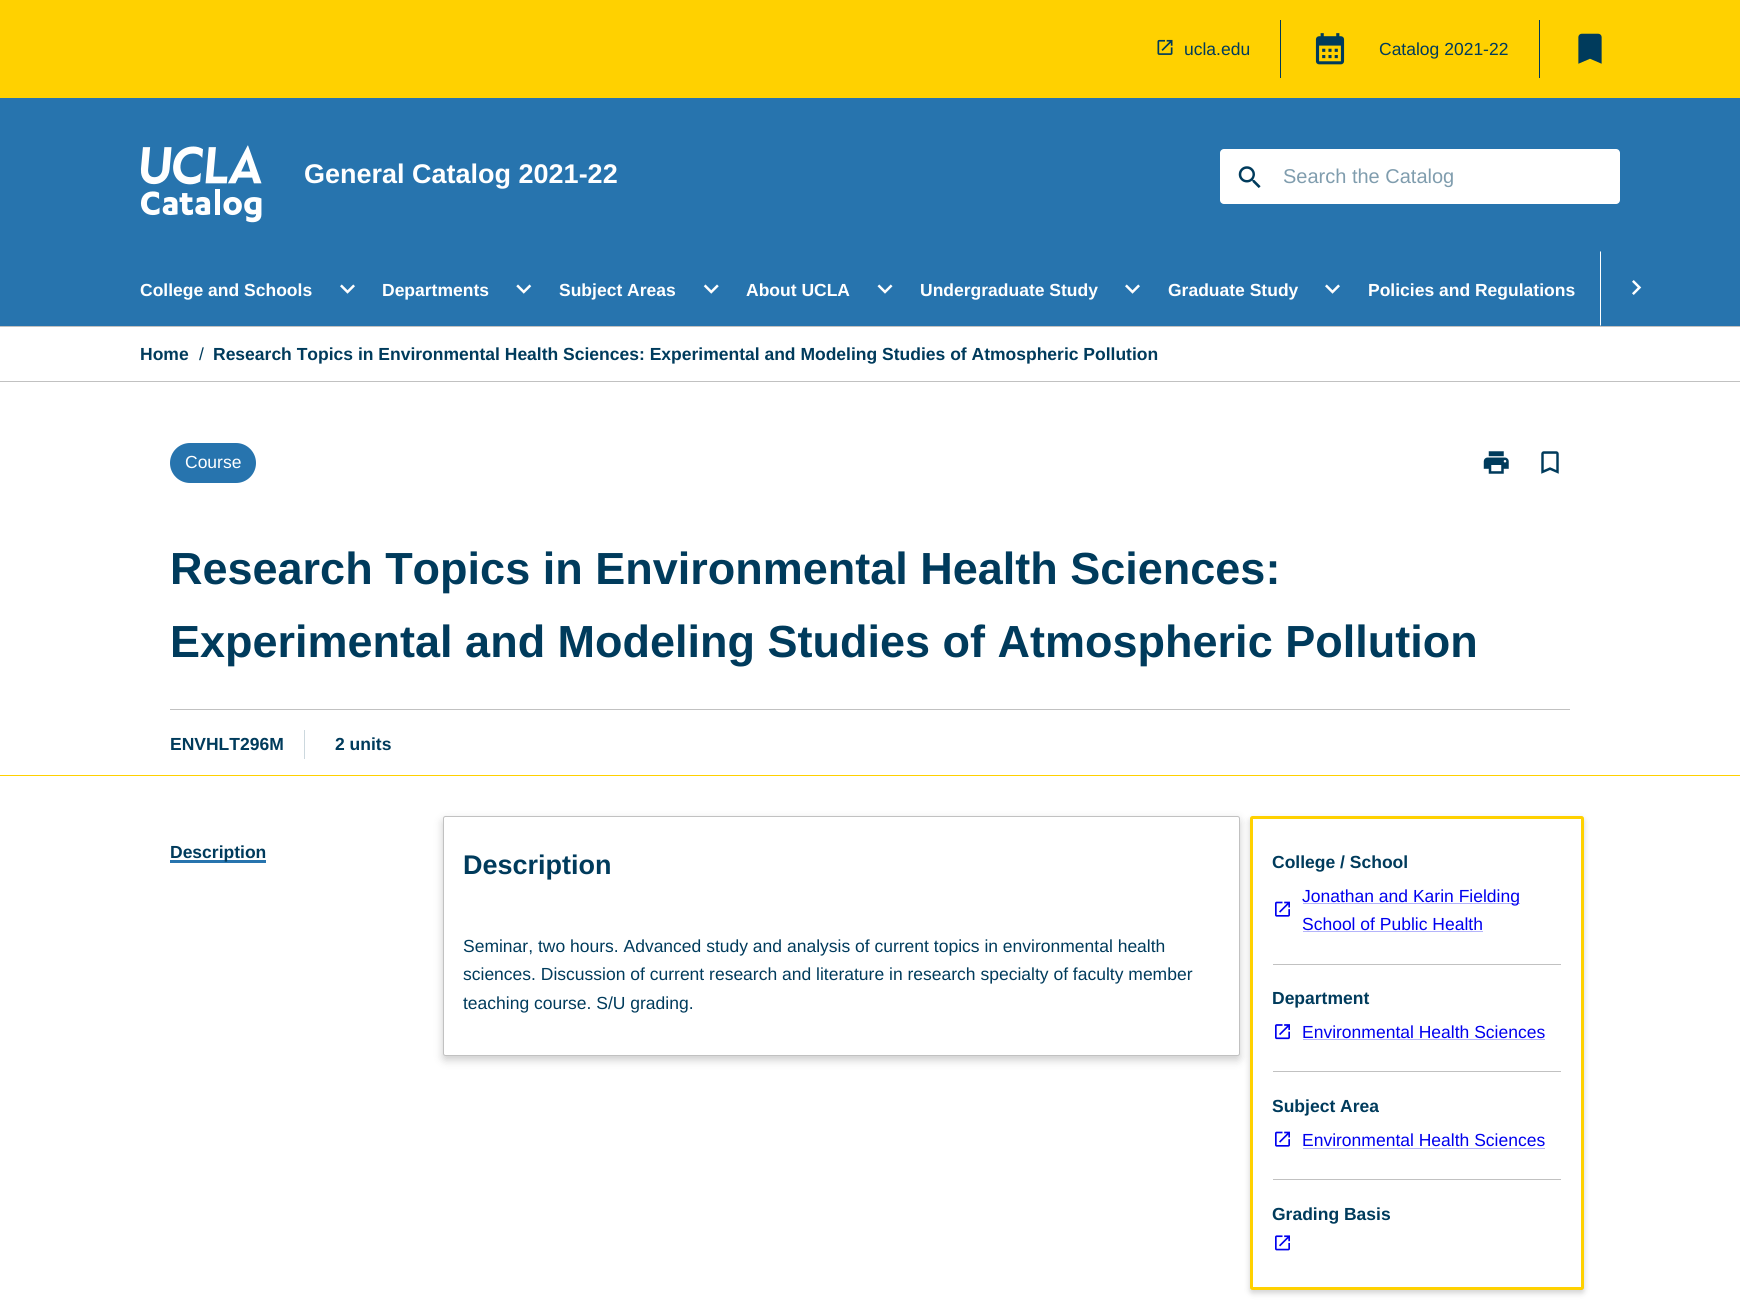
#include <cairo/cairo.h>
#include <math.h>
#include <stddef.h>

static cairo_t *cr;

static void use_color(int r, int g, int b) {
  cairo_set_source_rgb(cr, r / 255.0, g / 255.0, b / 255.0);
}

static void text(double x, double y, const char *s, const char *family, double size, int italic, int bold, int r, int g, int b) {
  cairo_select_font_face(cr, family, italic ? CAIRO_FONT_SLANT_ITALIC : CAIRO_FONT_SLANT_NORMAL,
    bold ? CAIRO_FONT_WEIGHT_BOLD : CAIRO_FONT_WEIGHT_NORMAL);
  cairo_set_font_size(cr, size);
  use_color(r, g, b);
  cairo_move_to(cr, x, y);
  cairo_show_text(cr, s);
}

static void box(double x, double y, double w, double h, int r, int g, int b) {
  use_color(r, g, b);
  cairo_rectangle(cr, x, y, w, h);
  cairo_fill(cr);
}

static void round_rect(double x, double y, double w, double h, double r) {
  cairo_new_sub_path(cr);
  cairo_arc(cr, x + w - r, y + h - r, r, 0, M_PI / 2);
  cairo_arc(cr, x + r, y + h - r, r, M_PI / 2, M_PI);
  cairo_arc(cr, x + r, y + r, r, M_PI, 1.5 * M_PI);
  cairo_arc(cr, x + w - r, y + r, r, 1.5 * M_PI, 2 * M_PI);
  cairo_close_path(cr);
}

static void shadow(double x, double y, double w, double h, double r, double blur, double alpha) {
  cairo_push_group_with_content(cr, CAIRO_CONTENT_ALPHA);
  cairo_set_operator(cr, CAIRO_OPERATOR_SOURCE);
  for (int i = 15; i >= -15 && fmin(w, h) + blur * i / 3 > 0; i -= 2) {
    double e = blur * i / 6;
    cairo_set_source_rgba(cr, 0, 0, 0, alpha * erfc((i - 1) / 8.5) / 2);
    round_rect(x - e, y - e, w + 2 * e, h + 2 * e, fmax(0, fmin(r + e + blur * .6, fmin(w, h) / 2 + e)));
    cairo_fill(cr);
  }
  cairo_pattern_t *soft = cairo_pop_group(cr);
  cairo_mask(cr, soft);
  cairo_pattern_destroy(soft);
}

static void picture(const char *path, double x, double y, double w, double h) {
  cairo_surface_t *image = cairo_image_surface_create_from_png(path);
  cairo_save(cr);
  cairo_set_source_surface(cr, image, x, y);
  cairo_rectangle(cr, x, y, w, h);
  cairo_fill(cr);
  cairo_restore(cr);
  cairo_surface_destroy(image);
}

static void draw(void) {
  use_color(255, 255, 255);
  cairo_paint(cr);
  box(0, 0, 1740, 98, 255, 209, 0);
  box(1280, 20, 1, 58, 0, 59, 92);
  picture("img_01.png", 1157, 39, 16, 16);
  box(1539, 20, 1, 58, 0, 59, 92);
  picture("img_02.png", 1315, 33, 30, 32);
  picture("img_03.png", 1578, 33, 24, 31);
  box(0, 98, 1740, 228, 39, 116, 174);
  picture("img_04.png", 140, 145, 122, 78);
  use_color(255, 255, 255);
  round_rect(1220, 149, 400, 55, 4);
  cairo_fill(cr);
  picture("img_05.png", 1238, 166, 23, 22);
  picture("img_06.png", 340, 284, 15, 10);
  picture("img_07.png", 516, 284, 16, 10);
  picture("img_08.png", 703, 284, 16, 10);
  picture("img_09.png", 877, 284, 16, 10);
  picture("img_06.png", 1125, 284, 15, 10);
  picture("img_06.png", 1325, 284, 15, 10);
  cairo_new_path(cr);
  cairo_move_to(cr, 1600, 326);
  cairo_line_to(cr, 1600, 251);
  cairo_line_to(cr, 1601, 252);
  cairo_line_to(cr, 1601, 325);
  cairo_close_path(cr);
  cairo_fill(cr);
  picture("img_10.png", 1632, 280, 10, 15);
  box(0, 326, 1740, 1, 193, 193, 193);
  box(0, 381, 1740, 1, 193, 193, 193);
  use_color(39, 116, 174);
  round_rect(170, 443, 86, 40, 20);
  cairo_fill(cr);
  picture("img_11.png", 1483, 451, 26, 23);
  picture("img_12.png", 1541, 451, 18, 23);
  box(170, 709, 1400, 1, 193, 193, 193);
  box(304, 730, 1, 29, 204, 216, 222);
  box(0, 775, 1740, 1, 255, 209, 0);
  box(170, 860, 96, 3, 39, 116, 174);
  use_color(0, 0, 0);
  shadow(443, 820, 797, 240, 2.5, 4.5, 0.2);
  use_color(255, 255, 255);
  round_rect(443.5, 816.5, 796, 239, 2);
  cairo_fill_preserve(cr);
  use_color(193, 193, 193);
  cairo_set_line_width(cr, 1);
  cairo_stroke(cr);
  use_color(0, 0, 0);
  shadow(1250, 819, 334, 474, 2.5, 3, 0.18);
  use_color(255, 255, 255);
  round_rect(1251.5, 817.5, 331, 471, 1);
  cairo_fill_preserve(cr);
  use_color(255, 209, 0);
  cairo_set_line_width(cr, 3);
  cairo_stroke(cr);
  box(1273, 964, 288, 1, 193, 193, 193);
  box(1303, 903, 217, 1, 179, 179, 250);
  picture("img_13.png", 1275, 901, 15, 16);
  box(1303, 931, 180, 1, 179, 179, 250);
  box(1273, 1071, 288, 1, 193, 193, 193);
  picture("img_14.png", 1275, 1024, 15, 16);
  box(1303, 1039, 242, 1, 179, 179, 250);
  box(1273, 1179, 288, 1, 193, 193, 193);
  picture("img_13.png", 1275, 1131, 15, 16);
  box(1303, 1148, 242, 1, 179, 179, 250);
  picture("img_15.png", 1275, 1235, 15, 16);
  text(1184, 55, "ucla.edu", "Liberation Sans", 17.5, 0, 0, 0, 59, 92);
  text(1379, 55, "Catalog 2021-22", "Liberation Sans", 17.5, 0, 0, 0, 59, 92);
  text(304, 183, "General Catalog 2021-22", "Liberation Sans", 27, 0, 1, 255, 255, 255);
  text(1283, 183, "Search the Catalog", "Liberation Sans", 20, 0, 0, 128, 157, 174);
  text(140, 296, "College and Schools", "Liberation Sans", 17.5, 0, 1, 255, 255, 255);
  text(382, 296, "Departments", "Liberation Sans", 17.5, 0, 1, 255, 255, 255);
  text(559, 296, "Subject Areas", "Liberation Sans", 17.5, 0, 1, 255, 255, 255);
  text(746, 296, "About UCLA", "Liberation Sans", 17.5, 0, 1, 255, 255, 255);
  text(920, 296, "Undergraduate Study", "Liberation Sans", 17.5, 0, 1, 255, 255, 255);
  text(1168, 296, "Graduate Study", "Liberation Sans", 17.5, 0, 1, 255, 255, 255);
  text(1368, 296, "Policies and Regulations", "Liberation Sans", 17.5, 0, 1, 255, 255, 255);
  text(140, 360, "Home", "Liberation Sans", 17.5, 0, 1, 0, 59, 92);
  text(199, 360, "/", "Liberation Sans", 17.5, 0, 0, 0, 59, 92);
  text(213, 360, "Research Topics in Environmental Health Sciences: Experimental and Modeling Studies of Atmospheric Pollution", "Liberation Sans", 17.5, 0, 1, 0, 59, 92);
  text(185, 468, "Course", "Liberation Sans", 17.5, 0, 0, 255, 255, 255);
  text(170, 584, "Research Topics in Environmental Health Sciences:", "Liberation Sans", 45, 0, 1, 0, 59, 92);
  text(170, 657, "Experimental and Modeling Studies of Atmospheric Pollution", "Liberation Sans", 45, 0, 1, 0, 59, 92);
  text(170, 750, "ENVHLT296M", "Liberation Sans", 17.5, 0, 1, 0, 59, 92);
  text(335, 750, "2 units", "Liberation Sans", 17.5, 0, 1, 0, 59, 92);
  text(170, 858, "Description", "Liberation Sans", 17.5, 0, 1, 0, 59, 92);
  text(463, 874, "Description", "Liberation Sans", 27, 0, 1, 0, 59, 92);
  text(463, 952, "Seminar, two hours. Advanced study and analysis of current topics in environmental health", "Liberation Sans", 17.5, 0, 0, 0, 59, 92);
  text(463, 980, "sciences. Discussion of current research and literature in research specialty of faculty member", "Liberation Sans", 17.5, 0, 0, 0, 59, 92);
  text(463, 1009, "teaching course. S/U grading.", "Liberation Sans", 17.5, 0, 0, 0, 59, 92);
  text(1272, 868, "College / School", "Liberation Sans", 17.5, 0, 1, 0, 59, 92);
  text(1302, 902, "Jonathan and Karin Fielding", "Liberation Sans", 17.5, 0, 0, 0, 0, 238);
  text(1302, 930, "School of Public Health", "Liberation Sans", 17.5, 0, 0, 0, 0, 238);
  text(1272, 1004, "Department", "Liberation Sans", 17.5, 0, 1, 0, 59, 92);
  text(1302, 1038, "Environmental Health Sciences", "Liberation Sans", 17.5, 0, 0, 0, 0, 238);
  text(1272, 1112, "Subject Area", "Liberation Sans", 17.5, 0, 1, 0, 59, 92);
  text(1302, 1146, "Environmental Health Sciences", "Liberation Sans", 17.5, 0, 0, 0, 0, 238);
  text(1272, 1220, "Grading Basis", "Liberation Sans", 17.5, 0, 1, 0, 59, 92);
}

int main(void) {
  cairo_surface_t *surface = cairo_image_surface_create(CAIRO_FORMAT_RGB24, 1740, 1305);
  cr = cairo_create(surface);
  cairo_font_options_t *options = cairo_font_options_create();
  cairo_font_options_set_hint_metrics(options, CAIRO_HINT_METRICS_OFF);
  cairo_font_options_set_hint_style(options, CAIRO_HINT_STYLE_NONE);
  cairo_set_font_options(cr, options);
  cairo_set_miter_limit(cr, 4);
  draw();
  cairo_surface_write_to_png(surface, "out.png");
  cairo_font_options_destroy(options);
  cairo_destroy(cr);
  cairo_surface_destroy(surface);
  return 0;
}
